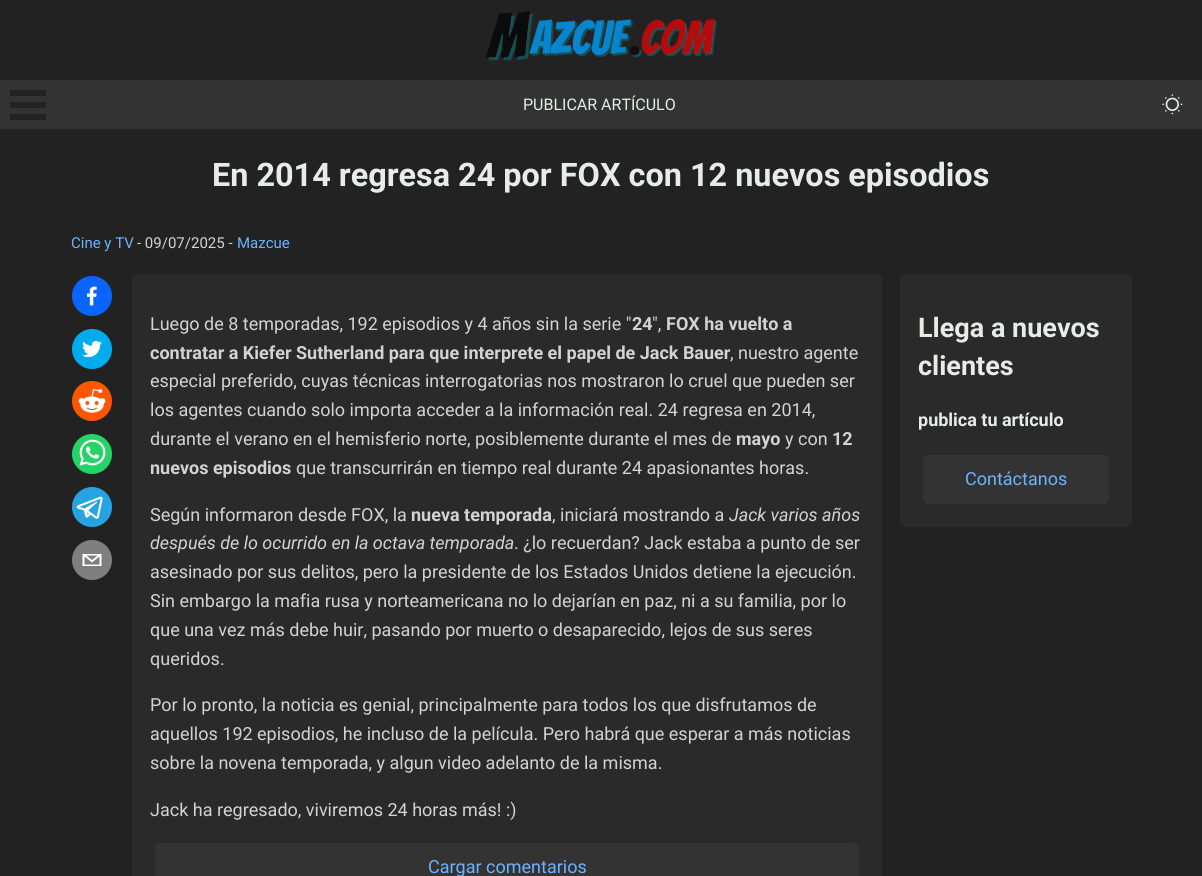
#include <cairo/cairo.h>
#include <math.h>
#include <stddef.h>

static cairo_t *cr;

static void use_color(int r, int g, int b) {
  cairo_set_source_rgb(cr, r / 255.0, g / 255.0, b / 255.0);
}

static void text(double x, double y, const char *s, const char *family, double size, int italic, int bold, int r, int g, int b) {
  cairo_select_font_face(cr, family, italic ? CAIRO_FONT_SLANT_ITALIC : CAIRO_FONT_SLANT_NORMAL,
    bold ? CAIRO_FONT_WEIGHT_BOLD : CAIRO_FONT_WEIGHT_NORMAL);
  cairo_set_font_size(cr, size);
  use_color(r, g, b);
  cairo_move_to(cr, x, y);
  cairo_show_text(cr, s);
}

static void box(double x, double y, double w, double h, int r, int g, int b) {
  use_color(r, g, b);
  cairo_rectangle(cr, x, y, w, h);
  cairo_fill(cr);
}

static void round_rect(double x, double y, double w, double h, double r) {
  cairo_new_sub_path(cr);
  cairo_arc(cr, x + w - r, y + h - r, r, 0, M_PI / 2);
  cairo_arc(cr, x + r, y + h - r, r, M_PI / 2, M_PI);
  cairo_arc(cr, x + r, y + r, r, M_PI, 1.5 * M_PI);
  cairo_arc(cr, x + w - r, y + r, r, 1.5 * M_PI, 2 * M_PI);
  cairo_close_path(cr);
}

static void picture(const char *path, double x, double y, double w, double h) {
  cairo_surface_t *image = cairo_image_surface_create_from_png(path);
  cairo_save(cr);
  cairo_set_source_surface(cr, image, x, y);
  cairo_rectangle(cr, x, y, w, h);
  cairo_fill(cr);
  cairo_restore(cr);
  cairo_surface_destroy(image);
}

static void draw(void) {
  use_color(34, 34, 34);
  cairo_paint(cr);
  picture("img_01.png", 485, 11, 232, 50);
  box(0, 80, 1202, 49, 51, 51, 51);
  box(10, 90, 36, 6, 34, 34, 34);
  box(10, 102, 36, 6, 34, 34, 34);
  box(10, 114, 36, 6, 34, 34, 34);
  picture("img_02.png", 1162, 94, 21, 21);
  picture("img_03.png", 72, 276, 40, 40);
  picture("img_04.png", 72, 329, 40, 40);
  picture("img_05.png", 72, 381, 40, 40);
  picture("img_06.png", 72, 434, 40, 40);
  picture("img_07.png", 72, 487, 40, 40);
  use_color(127, 127, 127);
  cairo_arc(cr, 92, 560, 20, 0, 2 * M_PI);
  cairo_fill(cr);
  use_color(255, 255, 255);
  cairo_new_path(cr);
  cairo_move_to(cr, 82.5, 554);
  cairo_line_to(cr, 82.5, 566);
  cairo_line_to(cr, 101.5, 566);
  cairo_line_to(cr, 101.5, 554);
  cairo_close_path(cr);
  cairo_move_to(cr, 97.5, 555.5);
  cairo_line_to(cr, 92, 560);
  cairo_line_to(cr, 86.5, 555.5);
  cairo_close_path(cr);
  cairo_move_to(cr, 84.5, 564.5);
  cairo_line_to(cr, 84.5, 556.5);
  cairo_line_to(cr, 92, 562.5);
  cairo_line_to(cr, 99.5, 556.5);
  cairo_line_to(cr, 99.5, 564.5);
  cairo_close_path(cr);
  cairo_fill(cr);
  use_color(42, 42, 42);
  round_rect(132, 274, 750, 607, 5);
  cairo_fill(cr);
  use_color(51, 51, 51);
  round_rect(155, 843, 704, 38, 5);
  cairo_fill(cr);
  use_color(42, 42, 42);
  round_rect(900, 274, 232, 253, 5);
  cairo_fill(cr);
  use_color(51, 51, 51);
  round_rect(923, 455, 186, 49, 5);
  cairo_fill(cr);
  text(523, 110, "PUBLICAR ARTÍCULO", "Roboto", 16, 0, 0, 230, 237, 231);
  text(212, 186, "En 2014 regresa 24 por FOX con 12 nuevos episodios", "Roboto", 32.4, 0, 1, 230, 237, 231);
  text(71, 248, "Cine y TV", "Roboto", 15, 0, 0, 107, 179, 255);
  text(137, 248, "- 09/07/2025 -", "Roboto", 15, 0, 0, 211, 211, 211);
  text(237, 248, "Mazcue", "Roboto", 15, 0, 0, 107, 179, 255);
  text(150, 330, "Luego de 8 temporadas, 192 episodios y 4 años sin la serie \"", "Roboto", 18, 0, 0, 211, 211, 211);
  text(632, 330, "24", "Roboto", 18, 0, 1, 211, 211, 211);
  text(652, 330, "\",", "Roboto", 18, 0, 0, 211, 211, 211);
  text(666, 330, "FOX ha vuelto a", "Roboto", 18, 0, 1, 211, 211, 211);
  text(150, 359, "contratar a Kiefer Sutherland para que interprete el papel de Jack Bauer", "Roboto", 18, 0, 1, 211, 211, 211);
  text(730, 359, ", nuestro agente", "Roboto", 18, 0, 0, 211, 211, 211);
  text(150, 387, "especial preferido, cuyas técnicas interrogatorias nos mostraron lo cruel que pueden ser", "Roboto", 18, 0, 0, 211, 211, 211);
  text(150, 416, "los agentes cuando solo importa acceder a la información real. 24 regresa en 2014,", "Roboto", 18, 0, 0, 211, 211, 211);
  text(150, 445, "durante el verano en el hemisferio norte, posiblemente durante el mes de", "Roboto", 18, 0, 0, 211, 211, 211);
  text(736, 445, "mayo", "Roboto", 18, 0, 1, 211, 211, 211);
  text(785, 445, "y con", "Roboto", 18, 0, 0, 211, 211, 211);
  text(832, 445, "12", "Roboto", 18, 0, 1, 211, 211, 211);
  text(150, 474, "nuevos episodios", "Roboto", 18, 0, 1, 211, 211, 211);
  text(296, 474, "que transcurrirán en tiempo real durante 24 apasionantes horas.", "Roboto", 18, 0, 0, 211, 211, 211);
  text(150, 521, "Según informaron desde FOX, la", "Roboto", 18, 0, 0, 211, 211, 211);
  text(411, 521, "nueva temporada", "Roboto", 18, 0, 1, 211, 211, 211);
  text(552, 521, ", iniciará mostrando a", "Roboto", 18, 0, 0, 211, 211, 211);
  text(729, 521, "Jack varios años", "Roboto", 18, 1, 0, 211, 211, 211);
  text(150, 549, "después de lo ocurrido en la octava temporada", "Roboto", 18, 1, 0, 211, 211, 211);
  text(514, 549, ". ¿lo recuerdan? Jack estaba a punto de ser", "Roboto", 18, 0, 0, 211, 211, 211);
  text(150, 578, "asesinado por sus delitos, pero la presidente de los Estados Unidos detiene la ejecución.", "Roboto", 18, 0, 0, 211, 211, 211);
  text(150, 607, "Sin embargo la mafia rusa y norteamericana no lo dejarían en paz, ni a su familia, por lo", "Roboto", 18, 0, 0, 211, 211, 211);
  text(150, 636, "que una vez más debe huir, pasando por muerto o desaparecido, lejos de sus seres", "Roboto", 18, 0, 0, 211, 211, 211);
  text(150, 665, "queridos.", "Roboto", 18, 0, 0, 211, 211, 211);
  text(150, 711, "Por lo pronto, la noticia es genial, principalmente para todos los que disfrutamos de", "Roboto", 18, 0, 0, 211, 211, 211);
  text(150, 740, "aquellos 192 episodios, he incluso de la película. Pero habrá que esperar a más noticias", "Roboto", 18, 0, 0, 211, 211, 211);
  text(150, 769, "sobre la novena temporada, y algun video adelanto de la misma.", "Roboto", 18, 0, 0, 211, 211, 211);
  text(150, 816, "Jack ha regresado, viviremos 24 horas más! :)", "Roboto", 18, 0, 0, 211, 211, 211);
  text(428, 873, "Cargar comentarios", "Roboto", 18, 0, 0, 107, 179, 255);
  text(918, 337, "Llega a nuevos", "Roboto", 27, 0, 1, 230, 237, 231);
  text(918, 375, "clientes", "Roboto", 27, 0, 1, 230, 237, 231);
  text(918, 426, "publica tu artículo", "Roboto", 18, 0, 1, 230, 237, 231);
  text(965, 485, "Contáctanos", "Roboto", 18, 0, 0, 107, 179, 255);
}

int main(void) {
  cairo_surface_t *surface = cairo_image_surface_create(CAIRO_FORMAT_RGB24, 1202, 876);
  cr = cairo_create(surface);
  cairo_font_options_t *options = cairo_font_options_create();
  cairo_font_options_set_hint_metrics(options, CAIRO_HINT_METRICS_OFF);
  cairo_font_options_set_hint_style(options, CAIRO_HINT_STYLE_NONE);
  cairo_set_font_options(cr, options);
  cairo_set_miter_limit(cr, 4);
  draw();
  cairo_surface_write_to_png(surface, "out.png");
  cairo_font_options_destroy(options);
  cairo_destroy(cr);
  cairo_surface_destroy(surface);
  return 0;
}
